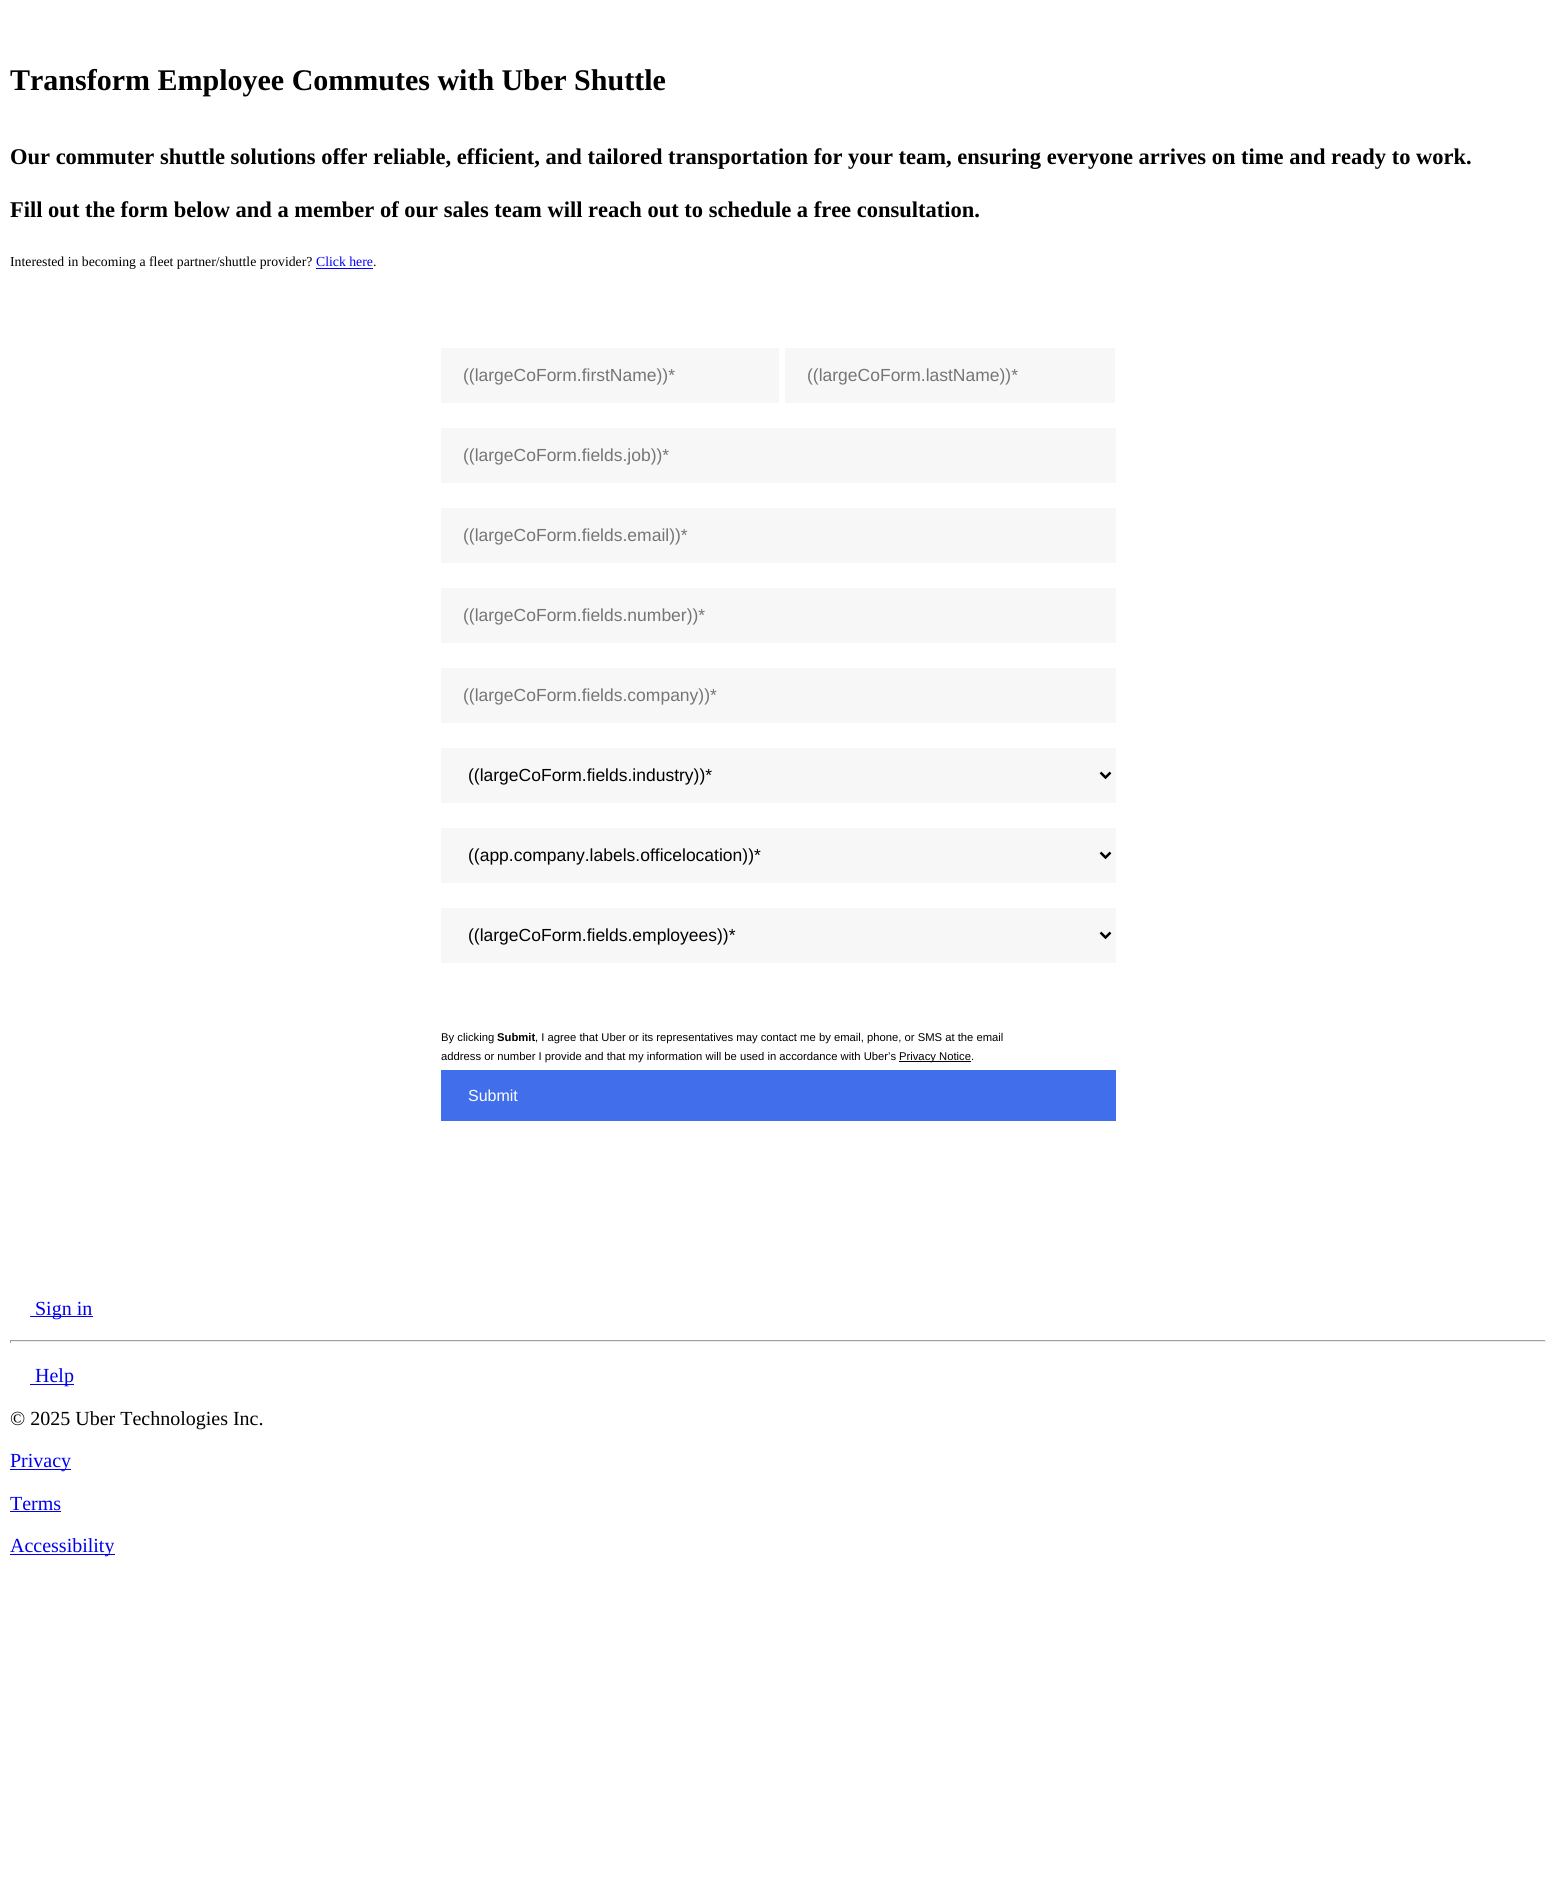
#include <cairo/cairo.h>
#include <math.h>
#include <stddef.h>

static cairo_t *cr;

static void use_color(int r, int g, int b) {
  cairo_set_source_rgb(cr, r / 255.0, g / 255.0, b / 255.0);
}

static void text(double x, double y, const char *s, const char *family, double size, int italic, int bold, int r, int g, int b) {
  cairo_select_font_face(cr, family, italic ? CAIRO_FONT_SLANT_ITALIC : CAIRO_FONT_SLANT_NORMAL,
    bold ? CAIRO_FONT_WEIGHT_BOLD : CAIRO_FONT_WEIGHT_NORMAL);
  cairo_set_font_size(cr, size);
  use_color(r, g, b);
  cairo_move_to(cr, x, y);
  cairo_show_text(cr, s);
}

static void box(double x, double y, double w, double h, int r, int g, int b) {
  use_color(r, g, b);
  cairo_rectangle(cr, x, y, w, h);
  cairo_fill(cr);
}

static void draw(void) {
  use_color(255, 255, 255);
  cairo_paint(cr);
  box(316, 268, 57, 1, 0, 0, 255);
  box(441, 348, 338, 55, 247, 247, 247);
  box(785, 348, 330, 55, 247, 247, 247);
  box(441, 428, 675, 55, 247, 247, 247);
  box(441, 508, 675, 55, 247, 247, 247);
  box(441, 588, 675, 55, 247, 247, 247);
  box(441, 668, 675, 55, 247, 247, 247);
  box(441, 748, 675, 55, 247, 247, 247);
  cairo_new_path(cr);
  cairo_move_to(cr, 1100.5, 772.5);
  cairo_line_to(cr, 1105.5, 777.5);
  cairo_line_to(cr, 1110.5, 772.5);
  use_color(0, 0, 0);
  cairo_set_line_width(cr, 2.5);
  cairo_stroke(cr);
  box(441, 828, 675, 55, 247, 247, 247);
  cairo_new_path(cr);
  cairo_move_to(cr, 1100.5, 852.5);
  cairo_line_to(cr, 1105.5, 857.5);
  cairo_line_to(cr, 1110.5, 852.5);
  use_color(0, 0, 0);
  cairo_stroke(cr);
  box(441, 908, 675, 55, 247, 247, 247);
  cairo_new_path(cr);
  cairo_move_to(cr, 1100.5, 932.5);
  cairo_line_to(cr, 1105.5, 937.5);
  cairo_line_to(cr, 1110.5, 932.5);
  use_color(0, 0, 0);
  cairo_stroke(cr);
  box(899, 1061, 72, 1, 0, 0, 0);
  box(441, 1070, 675, 51, 65, 110, 234);
  box(30, 1316, 63, 1, 0, 0, 238);
  box(10, 1340, 1536, 1, 159, 159, 159);
  box(1545, 1340, 1, 3, 238, 238, 238);
  box(10, 1341, 1536, 1, 238, 238, 238);
  box(10, 1340, 1, 3, 159, 159, 159);
  box(30, 1384, 44, 1, 0, 0, 238);
  box(10, 1469, 61, 1, 0, 0, 238);
  box(10, 1511, 51, 1, 0, 0, 238);
  box(10, 1554, 105, 1, 0, 0, 238);
  text(10, 90, "Transform Employee Commutes with Uber Shuttle", "Liberation Serif", 30, 0, 1, 0, 0, 0);
  text(10, 164, "Our commuter shuttle solutions offer reliable, efficient, and tailored transportation for your team, ensuring everyone arrives on time and ready to work.", "Liberation Serif", 22.5, 0, 1, 0, 0, 0);
  text(10, 217, "Fill out the form below and a member of our sales team will reach out to schedule a free consultation.", "Liberation Serif", 22.5, 0, 1, 0, 0, 0);
  text(10, 266, "Interested in becoming a fleet partner/shuttle provider?", "Liberation Serif", 13.75, 0, 0, 0, 0, 0);
  text(316, 266, "Click here", "Liberation Serif", 13.75, 0, 0, 0, 0, 255);
  text(373, 266, ".", "Liberation Serif", 13.75, 0, 0, 0, 0, 0);
  text(463, 381, "((largeCoForm.firstName))*", "Liberation Sans", 17.5, 0, 0, 117, 117, 117);
  text(807, 381, "((largeCoForm.lastName))*", "Liberation Sans", 17.5, 0, 0, 117, 117, 117);
  text(463, 461, "((largeCoForm.fields.job))*", "Liberation Sans", 17.5, 0, 0, 117, 117, 117);
  text(463, 541, "((largeCoForm.fields.email))*", "Liberation Sans", 17.5, 0, 0, 117, 117, 117);
  text(463, 621, "((largeCoForm.fields.number))*", "Liberation Sans", 17.5, 0, 0, 117, 117, 117);
  text(463, 701, "((largeCoForm.fields.company))*", "Liberation Sans", 17.5, 0, 0, 117, 117, 117);
  text(468, 781, "((largeCoForm.fields.industry))*", "Liberation Sans", 17.5, 0, 0, 0, 0, 0);
  text(468, 861, "((app.company.labels.officelocation))*", "Liberation Sans", 17.5, 0, 0, 0, 0, 0);
  text(468, 941, "((largeCoForm.fields.employees))*", "Liberation Sans", 17.5, 0, 0, 0, 0, 0);
  text(441, 1041, "By clicking", "Liberation Sans", 11.25, 0, 0, 0, 0, 0);
  text(497, 1041, "Submit", "Liberation Sans", 11.25, 0, 1, 0, 0, 0);
  text(535, 1041, ", I agree that Uber or its representatives may contact me by email, phone, or SMS at the email", "Liberation Sans", 11.25, 0, 0, 0, 0, 0);
  text(441, 1060, "address or number I provide and that my information will be used in accordance with Uber’s", "Liberation Sans", 11.25, 0, 0, 0, 0, 0);
  text(899, 1060, "Privacy Notice.", "Liberation Sans", 11.25, 0, 0, 0, 0, 0);
  text(468, 1101, "Submit", "Liberation Sans", 16, 0, 0, 255, 255, 255);
  text(35, 1315, "Sign in", "Liberation Serif", 20, 0, 0, 0, 0, 238);
  text(35, 1382, "Help", "Liberation Serif", 20, 0, 0, 0, 0, 238);
  text(10, 1425, "© 2025 Uber Technologies Inc.", "Liberation Serif", 20, 0, 0, 0, 0, 0);
  text(10, 1467, "Privacy", "Liberation Serif", 20, 0, 0, 0, 0, 238);
  text(10, 1510, "Terms", "Liberation Serif", 20, 0, 0, 0, 0, 238);
  text(10, 1552, "Accessibility", "Liberation Serif", 20, 0, 0, 0, 0, 238);
}

int main(void) {
  cairo_surface_t *surface = cairo_image_surface_create(CAIRO_FORMAT_RGB24, 1556, 1882);
  cr = cairo_create(surface);
  cairo_font_options_t *options = cairo_font_options_create();
  cairo_font_options_set_hint_metrics(options, CAIRO_HINT_METRICS_OFF);
  cairo_font_options_set_hint_style(options, CAIRO_HINT_STYLE_NONE);
  cairo_set_font_options(cr, options);
  cairo_set_miter_limit(cr, 4);
  draw();
  cairo_surface_write_to_png(surface, "out.png");
  cairo_font_options_destroy(options);
  cairo_destroy(cr);
  cairo_surface_destroy(surface);
  return 0;
}
